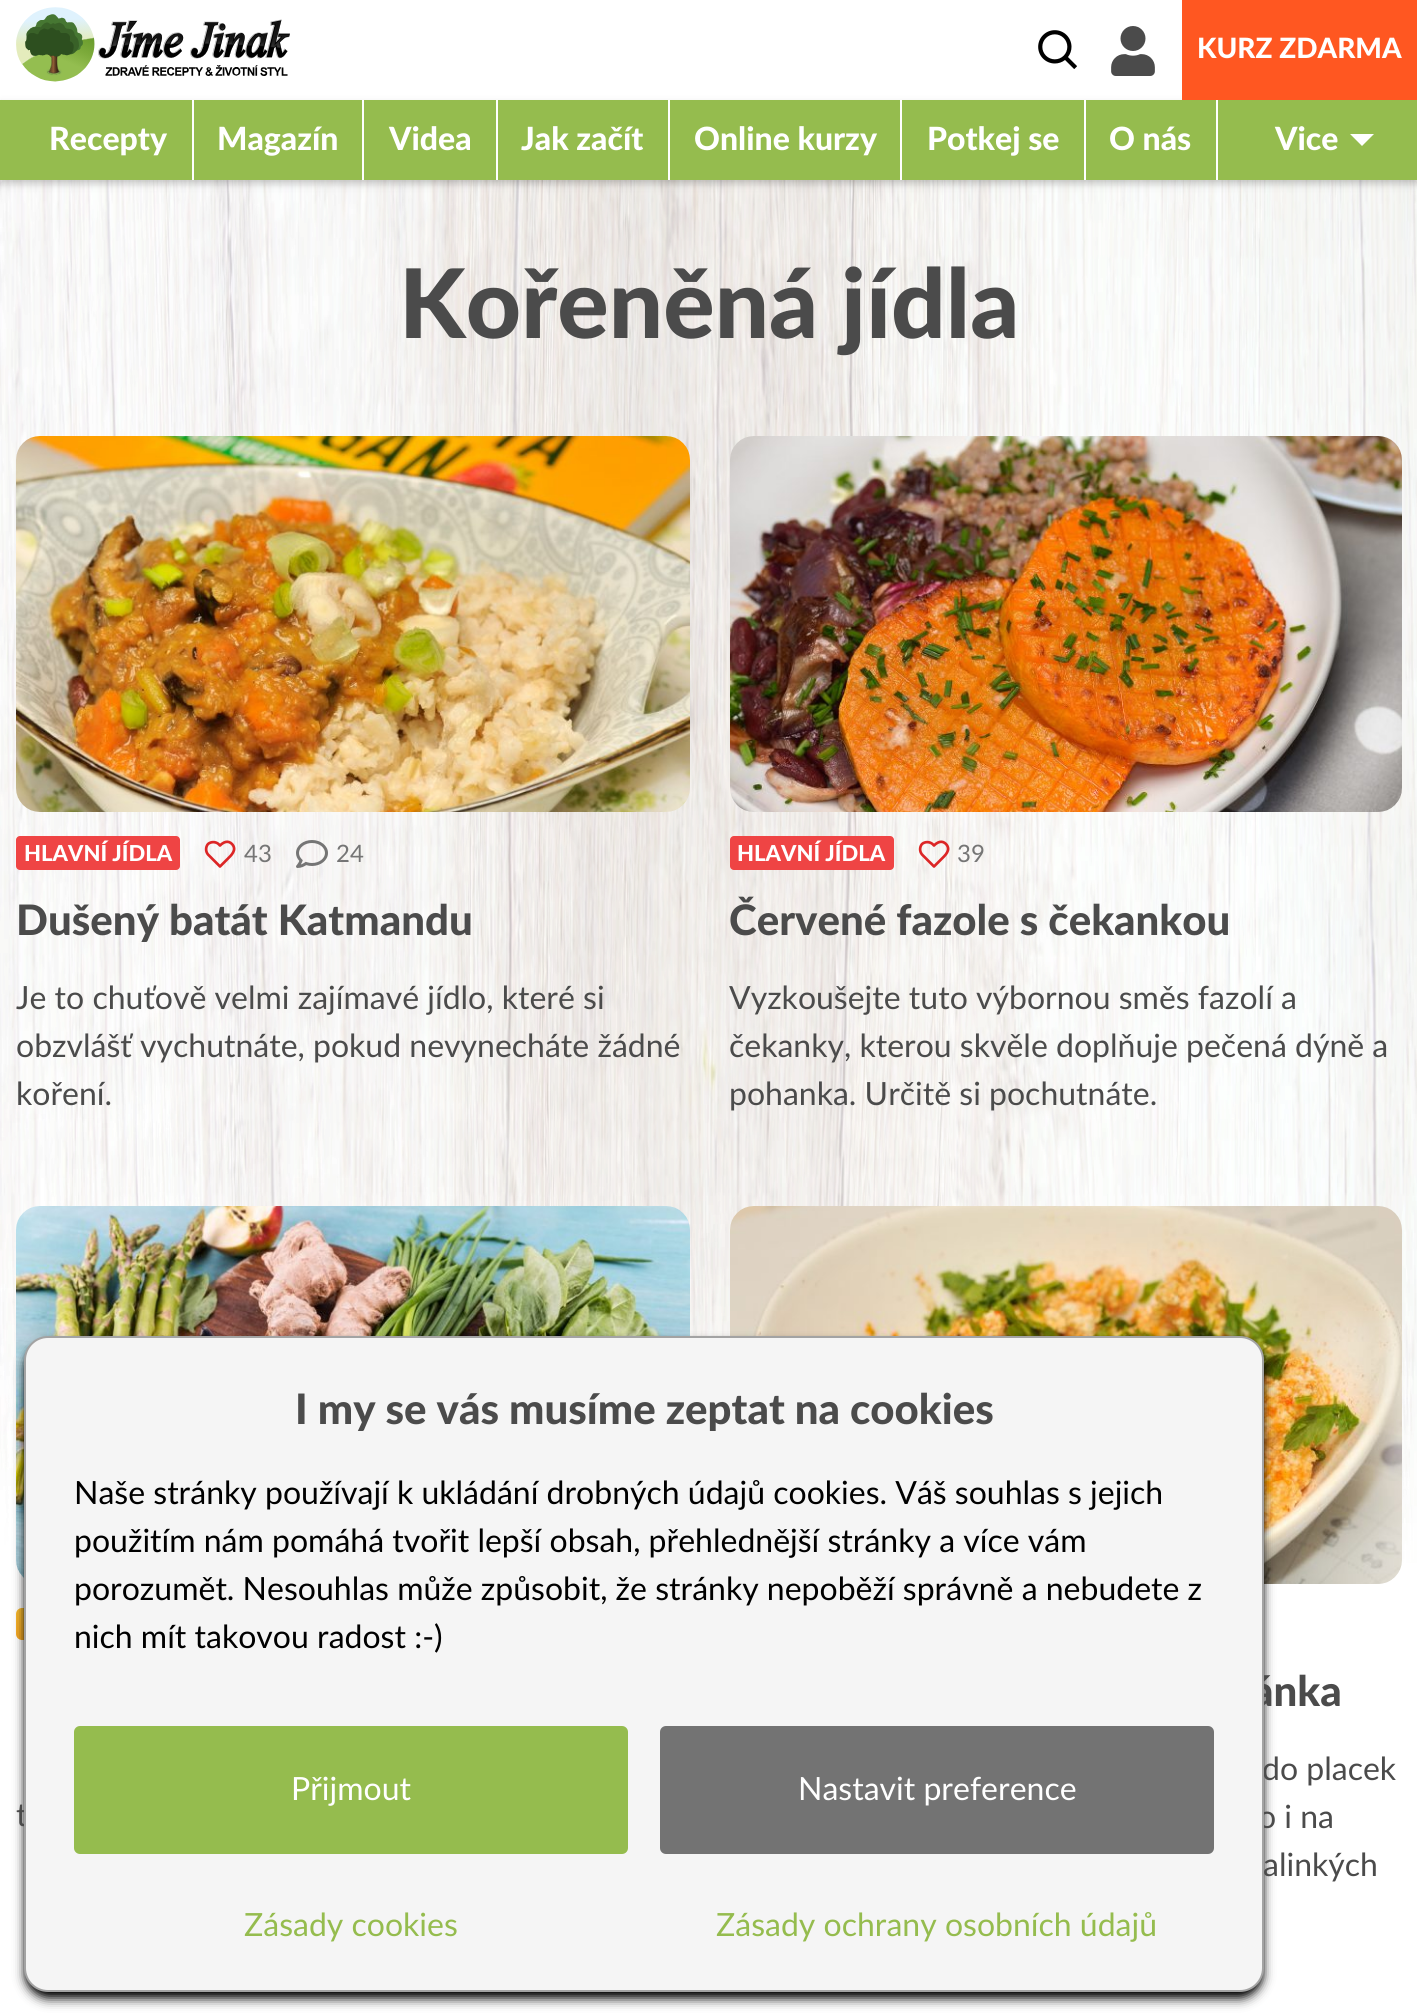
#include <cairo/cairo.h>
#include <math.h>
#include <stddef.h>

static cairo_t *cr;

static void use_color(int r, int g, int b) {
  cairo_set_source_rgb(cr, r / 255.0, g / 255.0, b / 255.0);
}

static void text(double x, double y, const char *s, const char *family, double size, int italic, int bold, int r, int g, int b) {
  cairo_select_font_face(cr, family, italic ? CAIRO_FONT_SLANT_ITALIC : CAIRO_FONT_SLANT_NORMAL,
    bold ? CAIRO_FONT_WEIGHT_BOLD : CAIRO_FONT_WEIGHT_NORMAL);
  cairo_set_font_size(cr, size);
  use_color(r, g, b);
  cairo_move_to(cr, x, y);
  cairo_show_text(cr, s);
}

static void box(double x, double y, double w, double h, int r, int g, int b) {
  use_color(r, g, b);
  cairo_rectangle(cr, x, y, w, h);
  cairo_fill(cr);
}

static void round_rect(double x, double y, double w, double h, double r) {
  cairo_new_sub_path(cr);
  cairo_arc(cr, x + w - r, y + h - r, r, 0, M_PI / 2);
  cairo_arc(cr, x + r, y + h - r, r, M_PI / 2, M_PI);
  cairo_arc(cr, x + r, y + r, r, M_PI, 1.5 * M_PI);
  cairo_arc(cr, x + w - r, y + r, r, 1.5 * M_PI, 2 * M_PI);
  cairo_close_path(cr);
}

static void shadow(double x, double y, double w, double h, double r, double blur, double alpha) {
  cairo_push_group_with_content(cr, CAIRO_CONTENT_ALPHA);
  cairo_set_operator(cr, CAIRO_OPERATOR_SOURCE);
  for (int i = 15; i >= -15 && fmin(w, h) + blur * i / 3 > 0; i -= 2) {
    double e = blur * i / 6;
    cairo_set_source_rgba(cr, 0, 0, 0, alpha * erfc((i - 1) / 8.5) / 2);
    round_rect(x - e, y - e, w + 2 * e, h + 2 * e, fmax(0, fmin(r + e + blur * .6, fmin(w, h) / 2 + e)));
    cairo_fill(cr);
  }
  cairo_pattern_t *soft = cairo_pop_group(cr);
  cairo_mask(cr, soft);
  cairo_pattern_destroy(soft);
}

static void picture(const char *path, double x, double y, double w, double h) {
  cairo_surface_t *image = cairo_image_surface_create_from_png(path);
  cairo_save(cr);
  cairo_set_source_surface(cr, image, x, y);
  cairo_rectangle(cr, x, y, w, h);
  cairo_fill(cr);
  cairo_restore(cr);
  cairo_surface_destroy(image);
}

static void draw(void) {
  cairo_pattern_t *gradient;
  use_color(255, 255, 255);
  cairo_paint(cr);
  picture("img_01.png", 0, 180, 1417, 1383);
  picture("img_02.png", 0, 180, 1417, 1343);
  picture("img_03.png", 16, 7, 274, 75);
  picture("img_04.png", 1038, 30, 39, 39);
  picture("img_05.png", 1111, 26, 44, 50);
  use_color(0, 0, 0);
  shadow(0, 104, 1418, 80, 0, 4, 0.21);
  box(1182, 0, 235, 100, 255, 87, 33);
  box(0, 100, 1417, 80, 149, 188, 78);
  box(192, 100, 2, 80, 255, 255, 255);
  box(362, 100, 2, 80, 255, 255, 255);
  box(496, 100, 2, 80, 255, 255, 255);
  box(668, 100, 2, 80, 255, 255, 255);
  box(900, 100, 2, 80, 255, 255, 255);
  box(1084, 100, 2, 80, 255, 255, 255);
  box(1216, 100, 2, 80, 255, 255, 255);
  cairo_new_path(cr);
  cairo_move_to(cr, 1350, 134);
  cairo_line_to(cr, 1362, 146);
  cairo_line_to(cr, 1374, 134);
  cairo_close_path(cr);
  cairo_fill(cr);
  picture("img_06.png", 16, 436, 674, 376);
  use_color(239, 68, 68);
  round_rect(16, 836, 164, 34, 4);
  cairo_fill(cr);
  cairo_new_path(cr);
  cairo_move_to(cr, 232, 844);
  cairo_curve_to(cr, 228, 840, 223.5, 842, 220, 845.5);
  cairo_line_to(cr, 218.5, 844);
  cairo_curve_to(cr, 215.5, 841.5, 211, 841.5, 208, 844);
  cairo_curve_to(cr, 205.5, 847, 205.5, 851.5, 208, 854.5);
  cairo_line_to(cr, 220, 866.5);
  cairo_line_to(cr, 227, 859.5);
  cairo_curve_to(cr, 231, 855.5, 237.5, 850, 232, 844);
  cairo_close_path(cr);
  use_color(220, 38, 38);
  cairo_set_line_width(cr, 2.7);
  cairo_set_line_cap(cr, CAIRO_LINE_CAP_ROUND);
  cairo_set_line_join(cr, CAIRO_LINE_JOIN_ROUND);
  cairo_stroke(cr);
  picture("img_07.png", 296, 840, 32, 28);
  picture("img_08.png", 730, 436, 672, 376);
  use_color(239, 68, 68);
  round_rect(730, 836, 164, 34, 4);
  cairo_fill(cr);
  cairo_new_path(cr);
  cairo_move_to(cr, 946, 844);
  cairo_curve_to(cr, 942, 840, 937.5, 842, 934, 845.5);
  cairo_line_to(cr, 932.5, 844);
  cairo_curve_to(cr, 929.5, 841.5, 925, 841.5, 922, 844);
  cairo_curve_to(cr, 919.5, 847, 919.5, 851.5, 922, 854.5);
  cairo_line_to(cr, 934, 866.5);
  cairo_line_to(cr, 941, 859.5);
  cairo_curve_to(cr, 945, 855.5, 951.5, 850, 946, 844);
  cairo_close_path(cr);
  use_color(220, 38, 38);
  cairo_stroke(cr);
  picture("img_09.png", 16, 1206, 674, 372);
  gradient = cairo_pattern_create_linear(103, 1589, 35, 1659);
  cairo_pattern_add_color_stop_rgba(gradient, 0.08, 0.984, 0.933, 0.286, 1);
  cairo_pattern_add_color_stop_rgba(gradient, 0.98, 0.961, 0.651, 0.137, 1);
  cairo_set_source(cr, gradient);
  cairo_pattern_destroy(gradient);
  round_rect(16, 1608, 106, 32, 6);
  cairo_fill(cr);
  picture("img_10.png", 730, 1206, 672, 378);
  use_color(0, 0, 0);
  shadow(28, 1344, 1232, 648, 20, 4, 1);
  shadow(26, 1346, 1236, 652, 22, 6, 1);
  text(1197, 58, "KURZ ZDARMA", "Lato Black", 28, 0, 0, 255, 255, 255);
  text(49, 150, "Recepty", "Lato Black", 32, 0, 0, 255, 255, 255);
  text(217, 150, "Magazín", "Lato Black", 32, 0, 0, 255, 255, 255);
  text(389, 150, "Videa", "Lato Black", 32, 0, 0, 255, 255, 255);
  text(521, 150, "Jak začít", "Lato Black", 32, 0, 0, 255, 255, 255);
  text(694, 150, "Online kurzy", "Lato Black", 32, 0, 0, 255, 255, 255);
  text(927, 150, "Potkej se", "Lato Black", 32, 0, 0, 255, 255, 255);
  text(1109, 150, "O nás", "Lato Black", 32, 0, 0, 255, 255, 255);
  text(1275, 150, "Vice", "Lato Black", 32, 0, 0, 255, 255, 255);
  text(399, 338, "Kořeněná jídla", "Lato Black", 96, 0, 0, 75, 75, 75);
  text(24, 861, "HLAVNÍ JÍDLA", "Lato Black", 22, 0, 0, 255, 255, 255);
  text(244, 862, "43", "Lato", 24, 0, 0, 117, 117, 117);
  text(336, 862, "24", "Lato", 24, 0, 0, 117, 117, 117);
  text(16, 935, "Dušený batát Katmandu", "Lato Black", 42, 0, 0, 75, 75, 75);
  text(16, 1009, "Je to chuťově velmi zajímavé jídlo, které si", "Lato", 32, 0, 0, 75, 75, 75);
  text(16, 1057, "obzvlášť vychutnáte, pokud nevynecháte žádné", "Lato", 32, 0, 0, 75, 75, 75);
  text(16, 1105, "koření.", "Lato", 32, 0, 0, 75, 75, 75);
  text(737, 861, "HLAVNÍ JÍDLA", "Lato Black", 22, 0, 0, 255, 255, 255);
  text(957, 862, "39", "Lato", 24, 0, 0, 117, 117, 117);
  text(729, 935, "Červené fazole s čekankou", "Lato Black", 42, 0, 0, 75, 75, 75);
  text(729, 1009, "Vyzkoušejte tuto výbornou směs fazolí a", "Lato", 32, 0, 0, 75, 75, 75);
  text(729, 1057, "čekanky, kterou skvěle doplňuje pečená dýně a", "Lato", 32, 0, 0, 75, 75, 75);
  text(729, 1105, "pohanka. Určitě si pochutnáte.", "Lato", 32, 0, 0, 75, 75, 75);
  text(16, 1826, "t", "Lato", 32, 0, 0, 75, 75, 75);
  text(1252, 1706, "ánka", "Lato Black", 42, 0, 0, 75, 75, 75);
  text(1262, 1780, "do placek", "Lato", 32, 0, 0, 75, 75, 75);
  text(1258, 1828, "o i na", "Lato", 32, 0, 0, 75, 75, 75);
  text(1263, 1876, "alinkých", "Lato", 32, 0, 0, 75, 75, 75);
  use_color(245, 245, 245);
  round_rect(25, 1337, 1238, 654, 23);
  cairo_fill_preserve(cr);
  use_color(163, 163, 163);
  cairo_set_line_width(cr, 2);
  cairo_set_line_cap(cr, CAIRO_LINE_CAP_BUTT);
  cairo_set_line_join(cr, CAIRO_LINE_JOIN_MITER);
  cairo_stroke(cr);
  text(295, 1424, "I my se vás musíme zeptat na cookies", "Lato Black", 42, 0, 0, 75, 75, 75);
  text(74, 1504, "Naše stránky používají k ukládání drobných údajů cookies. Váš souhlas s jejich", "Lato", 32, 0, 0, 0, 0, 0);
  text(74, 1552, "použitím nám pomáhá tvořit lepší obsah, přehlednější stránky a více vám", "Lato", 32, 0, 0, 0, 0, 0);
  text(74, 1600, "porozumět. Nesouhlas může způsobit, že stránky nepoběží správně a nebudete z", "Lato", 32, 0, 0, 0, 0, 0);
  text(74, 1648, "nich mít takovou radost :-)", "Lato", 32, 0, 0, 0, 0, 0);
  use_color(149, 188, 78);
  round_rect(74, 1726, 554, 128, 6);
  cairo_fill(cr);
  text(291, 1800, "Přijmout", "Lato", 32, 0, 0, 255, 255, 255);
  use_color(115, 115, 115);
  round_rect(660, 1726, 554, 128, 6);
  cairo_fill(cr);
  text(798, 1800, "Nastavit preference", "Lato", 32, 0, 0, 255, 255, 255);
  text(244, 1936, "Zásady cookies", "Lato", 32, 0, 0, 149, 188, 78);
  text(716, 1936, "Zásady ochrany osobních údajů", "Lato", 32, 0, 0, 149, 188, 78);
}

int main(void) {
  cairo_surface_t *surface = cairo_image_surface_create(CAIRO_FORMAT_RGB24, 1417, 2016);
  cr = cairo_create(surface);
  cairo_font_options_t *options = cairo_font_options_create();
  cairo_font_options_set_hint_metrics(options, CAIRO_HINT_METRICS_OFF);
  cairo_font_options_set_hint_style(options, CAIRO_HINT_STYLE_NONE);
  cairo_set_font_options(cr, options);
  cairo_set_miter_limit(cr, 4);
  draw();
  cairo_surface_write_to_png(surface, "out.png");
  cairo_font_options_destroy(options);
  cairo_destroy(cr);
  cairo_surface_destroy(surface);
  return 0;
}
